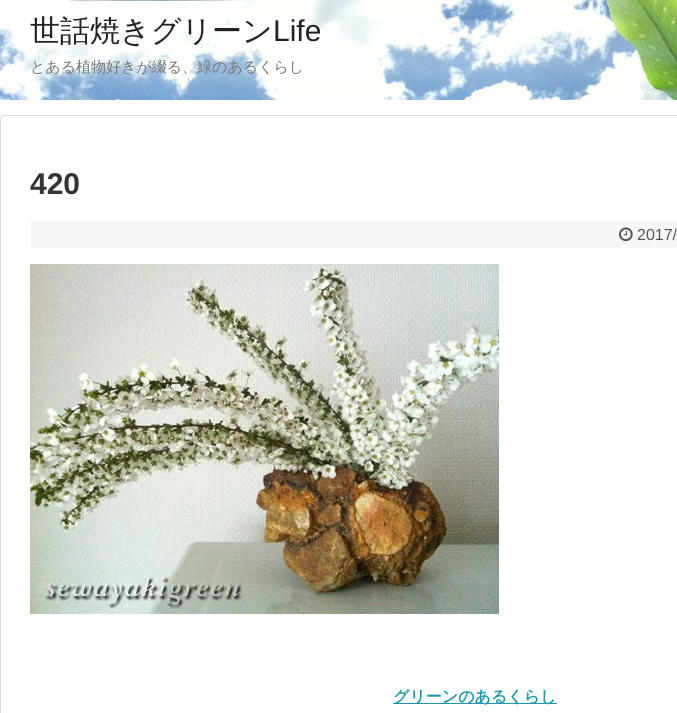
#include <cairo/cairo.h>
#include <math.h>
#include <stddef.h>

static cairo_t *cr;

static void use_color(int r, int g, int b) {
  cairo_set_source_rgb(cr, r / 255.0, g / 255.0, b / 255.0);
}

static void text(double x, double y, const char *s, const char *family, double size, int italic, int bold, int r, int g, int b) {
  cairo_select_font_face(cr, family, italic ? CAIRO_FONT_SLANT_ITALIC : CAIRO_FONT_SLANT_NORMAL,
    bold ? CAIRO_FONT_WEIGHT_BOLD : CAIRO_FONT_WEIGHT_NORMAL);
  cairo_set_font_size(cr, size);
  use_color(r, g, b);
  cairo_move_to(cr, x, y);
  cairo_show_text(cr, s);
}

static void box(double x, double y, double w, double h, int r, int g, int b) {
  use_color(r, g, b);
  cairo_rectangle(cr, x, y, w, h);
  cairo_fill(cr);
}

static void round_rect(double x, double y, double w, double h, double r) {
  cairo_new_sub_path(cr);
  cairo_arc(cr, x + w - r, y + h - r, r, 0, M_PI / 2);
  cairo_arc(cr, x + r, y + h - r, r, M_PI / 2, M_PI);
  cairo_arc(cr, x + r, y + r, r, M_PI, 1.5 * M_PI);
  cairo_arc(cr, x + w - r, y + r, r, 1.5 * M_PI, 2 * M_PI);
  cairo_close_path(cr);
}

static void picture(const char *path, double x, double y, double w, double h) {
  cairo_surface_t *image = cairo_image_surface_create_from_png(path);
  cairo_save(cr);
  cairo_set_source_surface(cr, image, x, y);
  cairo_rectangle(cr, x, y, w, h);
  cairo_fill(cr);
  cairo_restore(cr);
  cairo_surface_destroy(image);
}

static void draw(void) {
  use_color(255, 255, 255);
  cairo_paint(cr);
  picture("img_01.png", 0, 0, 677, 100);
  round_rect(0.5, 115.5, 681, 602, 3.5);
  use_color(221, 221, 221);
  cairo_set_line_width(cr, 1);
  cairo_stroke(cr);
  box(30, 221, 647, 27, 247, 247, 247);
  picture("img_02.png", 619, 227, 14, 15);
  picture("img_03.png", 30, 264, 469, 350);
  box(393, 703, 164, 1, 32, 152, 168);
  text(30, 41, "世話焼きグリーン", "WenQuanYi Zen Hei Medium", 30, 0, 0, 34, 34, 34);
  text(273, 41, "Life", "Liberation Sans", 30, 0, 0, 34, 34, 34);
  text(30, 72, "とある植物好きが綴る、緑のあるくらし", "WenQuanYi Zen Hei Medium", 15, 0, 0, 119, 119, 119);
  text(30, 194, "420", "Liberation Sans", 30, 0, 1, 51, 51, 51);
  text(637, 240, "2017/", "Liberation Sans", 16, 0, 0, 85, 85, 85);
  text(393, 702, "グリーンのあるくらし", "WenQuanYi Zen Hei", 16, 0, 1, 32, 152, 168);
}

int main(void) {
  cairo_surface_t *surface = cairo_image_surface_create(CAIRO_FORMAT_RGB24, 677, 713);
  cr = cairo_create(surface);
  cairo_font_options_t *options = cairo_font_options_create();
  cairo_font_options_set_hint_metrics(options, CAIRO_HINT_METRICS_OFF);
  cairo_font_options_set_hint_style(options, CAIRO_HINT_STYLE_NONE);
  cairo_set_font_options(cr, options);
  cairo_set_miter_limit(cr, 4);
  draw();
  cairo_surface_write_to_png(surface, "out.png");
  cairo_font_options_destroy(options);
  cairo_destroy(cr);
  cairo_surface_destroy(surface);
  return 0;
}
